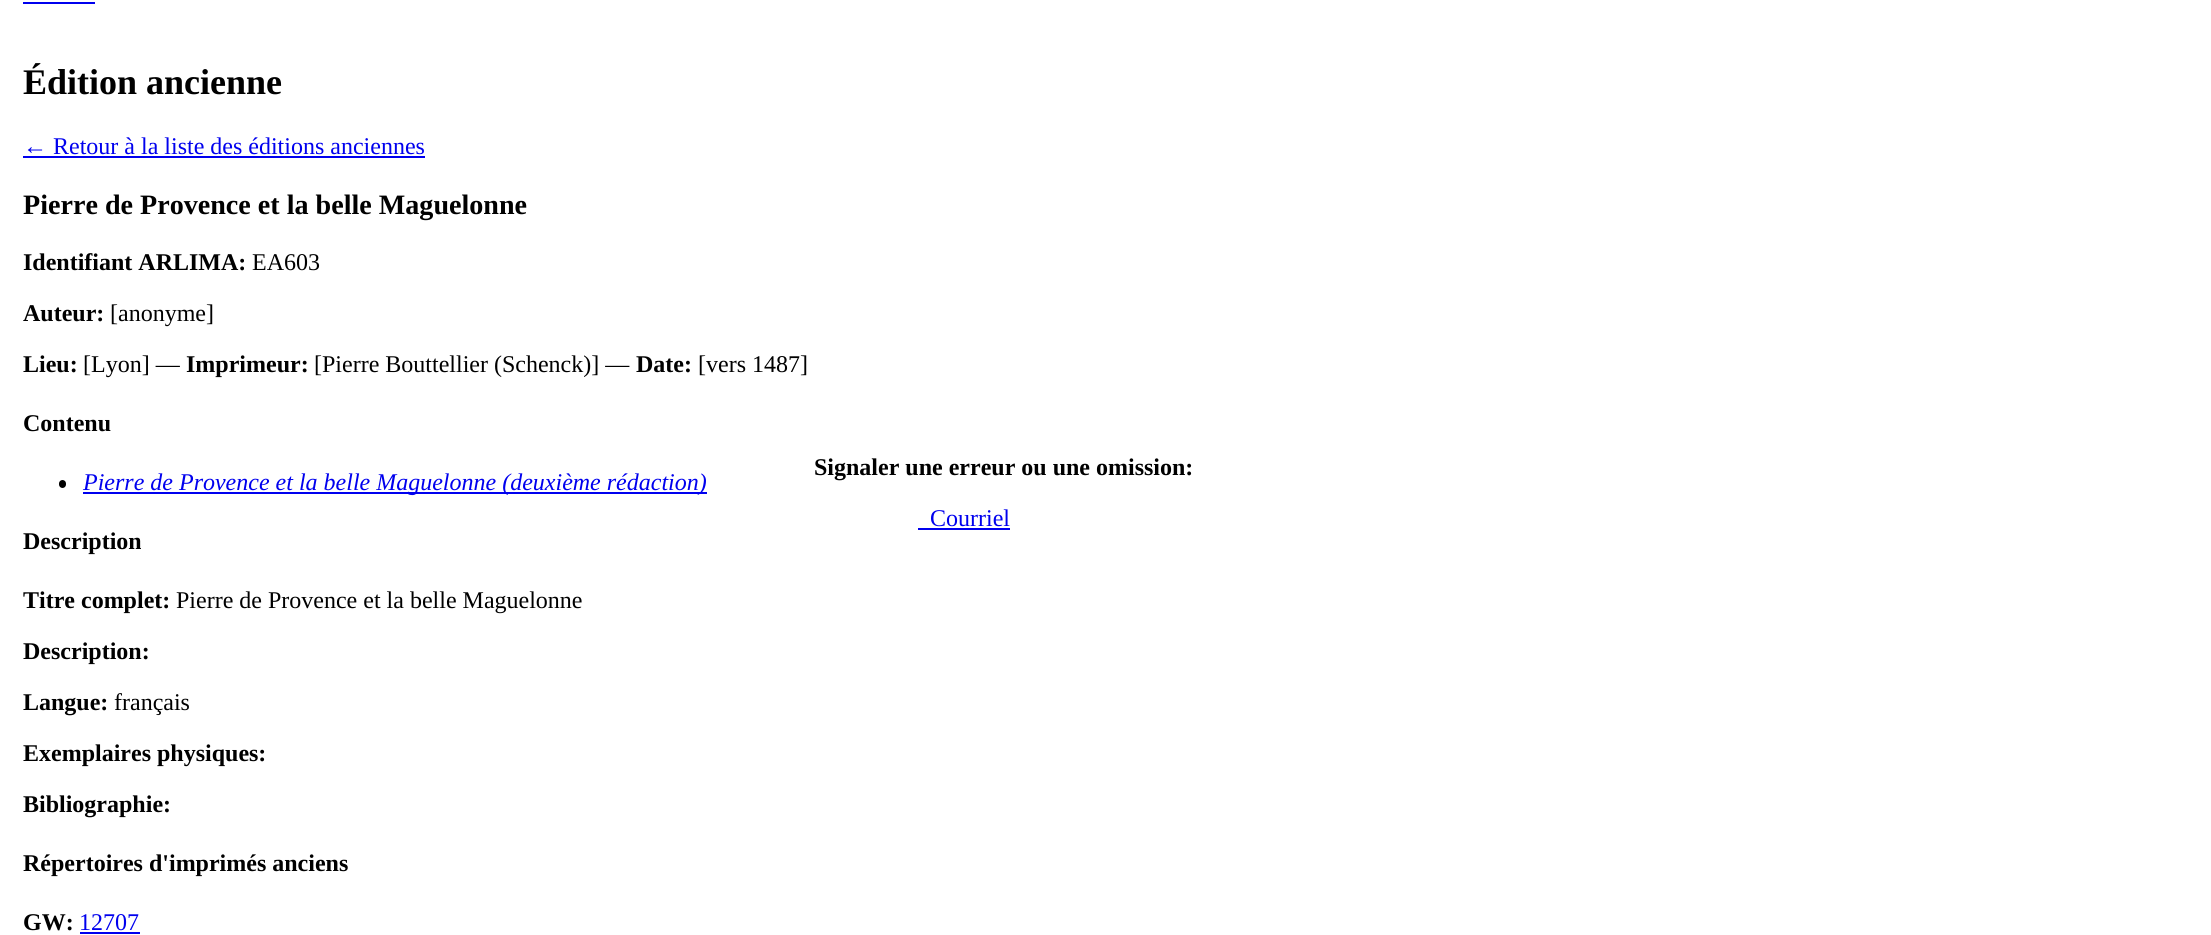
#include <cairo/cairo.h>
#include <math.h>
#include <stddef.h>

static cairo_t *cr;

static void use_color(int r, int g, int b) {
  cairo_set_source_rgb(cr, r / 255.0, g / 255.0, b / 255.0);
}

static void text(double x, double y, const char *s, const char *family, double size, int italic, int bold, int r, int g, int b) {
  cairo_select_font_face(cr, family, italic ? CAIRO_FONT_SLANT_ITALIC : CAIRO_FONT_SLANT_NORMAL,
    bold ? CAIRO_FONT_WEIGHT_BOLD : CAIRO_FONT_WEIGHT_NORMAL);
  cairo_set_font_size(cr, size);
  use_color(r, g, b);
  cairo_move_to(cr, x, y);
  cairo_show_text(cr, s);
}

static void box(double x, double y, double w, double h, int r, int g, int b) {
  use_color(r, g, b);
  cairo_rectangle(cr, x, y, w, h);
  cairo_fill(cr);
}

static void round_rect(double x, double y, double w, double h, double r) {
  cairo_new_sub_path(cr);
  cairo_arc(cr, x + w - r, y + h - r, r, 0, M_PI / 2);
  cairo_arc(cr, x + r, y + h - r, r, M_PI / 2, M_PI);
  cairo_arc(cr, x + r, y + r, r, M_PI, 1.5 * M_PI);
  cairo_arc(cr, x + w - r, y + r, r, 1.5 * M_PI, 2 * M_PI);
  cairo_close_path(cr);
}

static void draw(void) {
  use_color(255, 255, 255);
  cairo_paint(cr);
  box(23, 2, 72, 2, 0, 0, 238);
  box(23, 156, 402, 2, 0, 0, 238);
  use_color(0, 0, 0);
  round_rect(59, 480, 7, 8, 3.5);
  cairo_fill(cr);
  box(83, 492, 624, 2, 0, 0, 238);
  box(80, 932, 60, 2, 0, 0, 238);
  box(918, 528, 92, 2, 0, 0, 238);
  text(23, 94, "Édition ancienne", "Liberation Serif", 36, 0, 1, 0, 0, 0);
  text(23, 154, "← Retour à la liste des éditions anciennes", "Liberation Serif", 24, 0, 0, 0, 0, 238);
  text(23, 214, "Pierre de Provence et la belle Maguelonne", "Liberation Serif", 28.1, 0, 1, 0, 0, 0);
  text(23, 270, "Identifiant ARLIMA:", "Liberation Serif", 24, 0, 1, 0, 0, 0);
  text(252, 270, "EA603", "Liberation Serif", 24, 0, 0, 0, 0, 0);
  text(23, 321, "Auteur:", "Liberation Serif", 24, 0, 1, 0, 0, 0);
  text(110, 321, "[anonyme]", "Liberation Serif", 24, 0, 0, 0, 0, 0);
  text(23, 372, "Lieu:", "Liberation Serif", 24, 0, 1, 0, 0, 0);
  text(83, 372, "[Lyon] —", "Liberation Serif", 24, 0, 0, 0, 0, 0);
  text(186, 372, "Imprimeur:", "Liberation Serif", 24, 0, 1, 0, 0, 0);
  text(314, 372, "[Pierre Bouttellier (Schenck)] —", "Liberation Serif", 24, 0, 0, 0, 0, 0);
  text(636, 372, "Date:", "Liberation Serif", 24, 0, 1, 0, 0, 0);
  text(698, 372, "[vers 1487]", "Liberation Serif", 24, 0, 0, 0, 0, 0);
  text(23, 431, "Contenu", "Liberation Serif", 24, 0, 1, 0, 0, 0);
  text(83, 490, "Pierre de Provence et la belle Maguelonne (deuxième rédaction)", "Liberation Serif", 24, 1, 0, 0, 0, 238);
  text(23, 549, "Description", "Liberation Serif", 24, 0, 1, 0, 0, 0);
  text(23, 608, "Titre complet:", "Liberation Serif", 24, 0, 1, 0, 0, 0);
  text(176, 608, "Pierre de Provence et la belle Maguelonne", "Liberation Serif", 24, 0, 0, 0, 0, 0);
  text(23, 659, "Description:", "Liberation Serif", 24, 0, 1, 0, 0, 0);
  text(23, 710, "Langue:", "Liberation Serif", 24, 0, 1, 0, 0, 0);
  text(114, 710, "français", "Liberation Serif", 24, 0, 0, 0, 0, 0);
  text(23, 761, "Exemplaires physiques:", "Liberation Serif", 24, 0, 1, 0, 0, 0);
  text(23, 812, "Bibliographie:", "Liberation Serif", 24, 0, 1, 0, 0, 0);
  text(23, 871, "Répertoires d'imprimés anciens", "Liberation Serif", 24, 0, 1, 0, 0, 0);
  text(23, 930, "GW:", "Liberation Serif", 24, 0, 1, 0, 0, 0);
  text(79, 930, "12707", "Liberation Serif", 24, 0, 0, 0, 0, 238);
  text(814, 475, "Signaler une erreur ou une omission:", "Liberation Serif", 24, 0, 1, 0, 0, 0);
  text(930, 526, "Courriel", "Liberation Serif", 24, 0, 0, 0, 0, 238);
}

int main(void) {
  cairo_surface_t *surface = cairo_image_surface_create(CAIRO_FORMAT_RGB24, 2211, 935);
  cr = cairo_create(surface);
  cairo_font_options_t *options = cairo_font_options_create();
  cairo_font_options_set_hint_metrics(options, CAIRO_HINT_METRICS_OFF);
  cairo_font_options_set_hint_style(options, CAIRO_HINT_STYLE_NONE);
  cairo_set_font_options(cr, options);
  cairo_set_miter_limit(cr, 4);
  draw();
  cairo_surface_write_to_png(surface, "out.png");
  cairo_font_options_destroy(options);
  cairo_destroy(cr);
  cairo_surface_destroy(surface);
  return 0;
}
